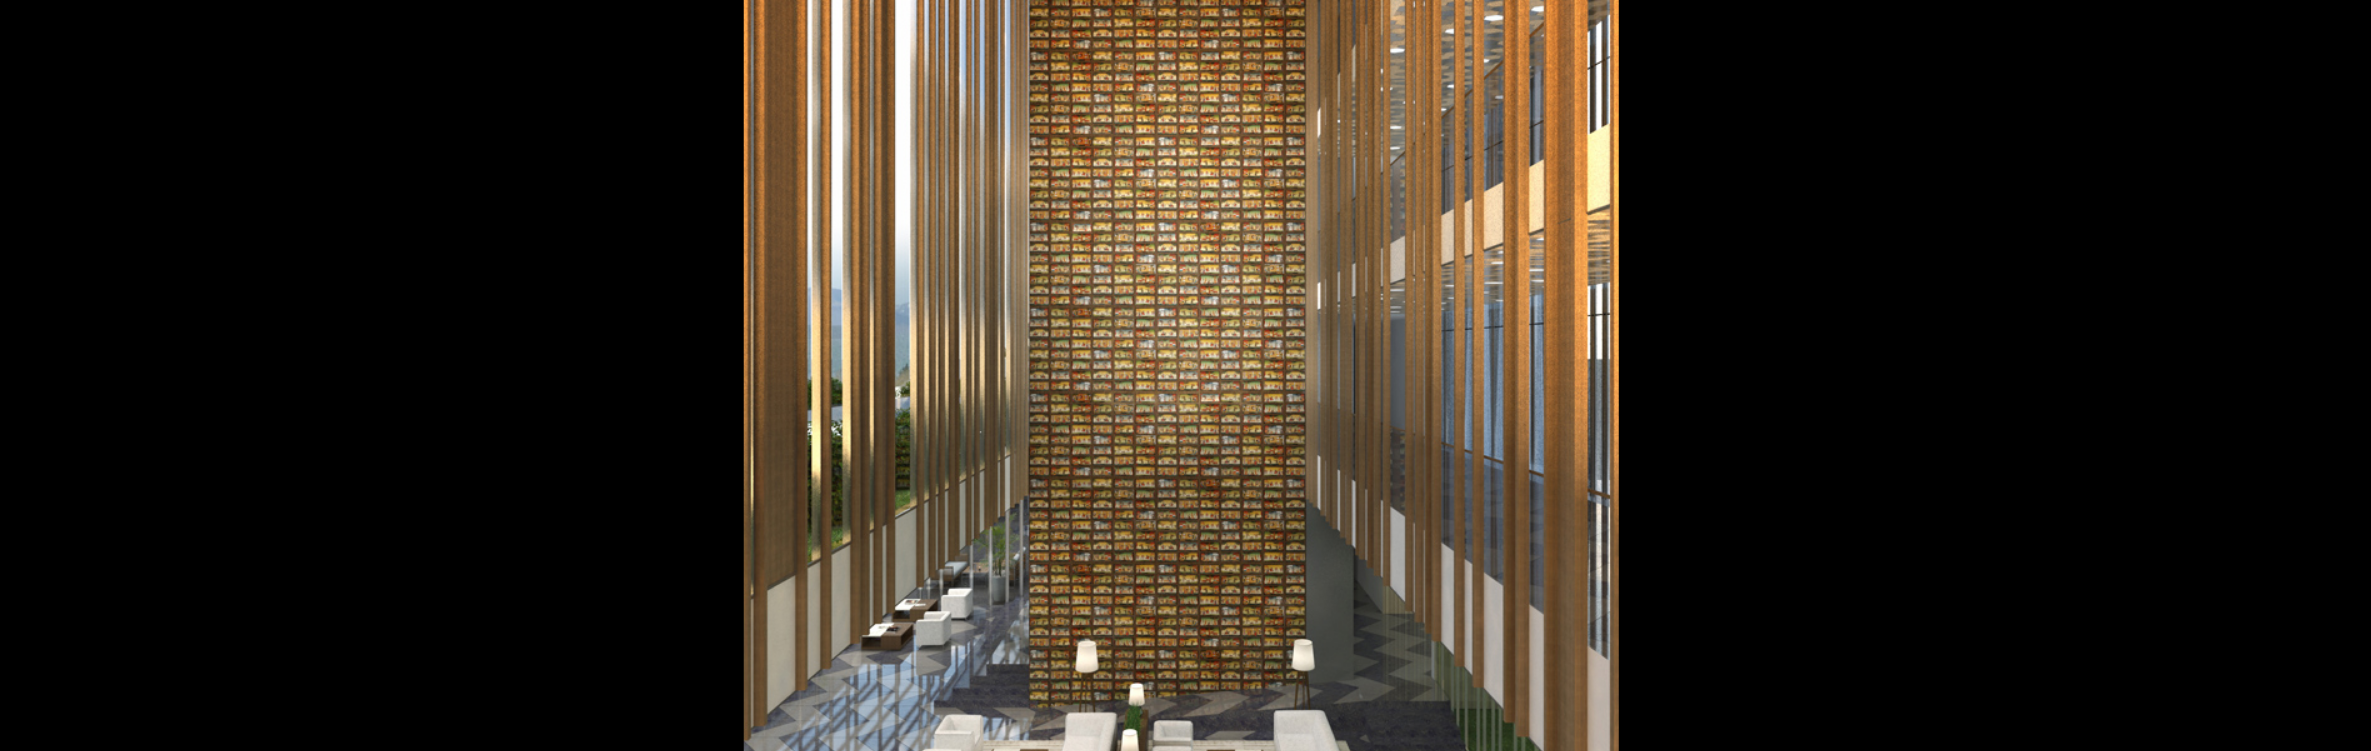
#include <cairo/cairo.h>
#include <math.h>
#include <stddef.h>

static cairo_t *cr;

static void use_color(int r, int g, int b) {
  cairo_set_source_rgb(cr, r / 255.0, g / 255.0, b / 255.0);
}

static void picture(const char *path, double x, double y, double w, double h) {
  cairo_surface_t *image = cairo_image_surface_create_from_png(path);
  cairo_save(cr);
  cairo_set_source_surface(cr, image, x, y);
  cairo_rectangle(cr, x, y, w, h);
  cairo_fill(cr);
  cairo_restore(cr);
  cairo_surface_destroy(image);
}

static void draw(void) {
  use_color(0, 0, 0);
  cairo_paint(cr);
  picture("img_01.png", 743, 0, 876, 751);
}

int main(void) {
  cairo_surface_t *surface = cairo_image_surface_create(CAIRO_FORMAT_RGB24, 2371, 751);
  cr = cairo_create(surface);
  cairo_font_options_t *options = cairo_font_options_create();
  cairo_font_options_set_hint_metrics(options, CAIRO_HINT_METRICS_OFF);
  cairo_font_options_set_hint_style(options, CAIRO_HINT_STYLE_NONE);
  cairo_set_font_options(cr, options);
  cairo_set_miter_limit(cr, 4);
  draw();
  cairo_surface_write_to_png(surface, "out.png");
  cairo_font_options_destroy(options);
  cairo_destroy(cr);
  cairo_surface_destroy(surface);
  return 0;
}
